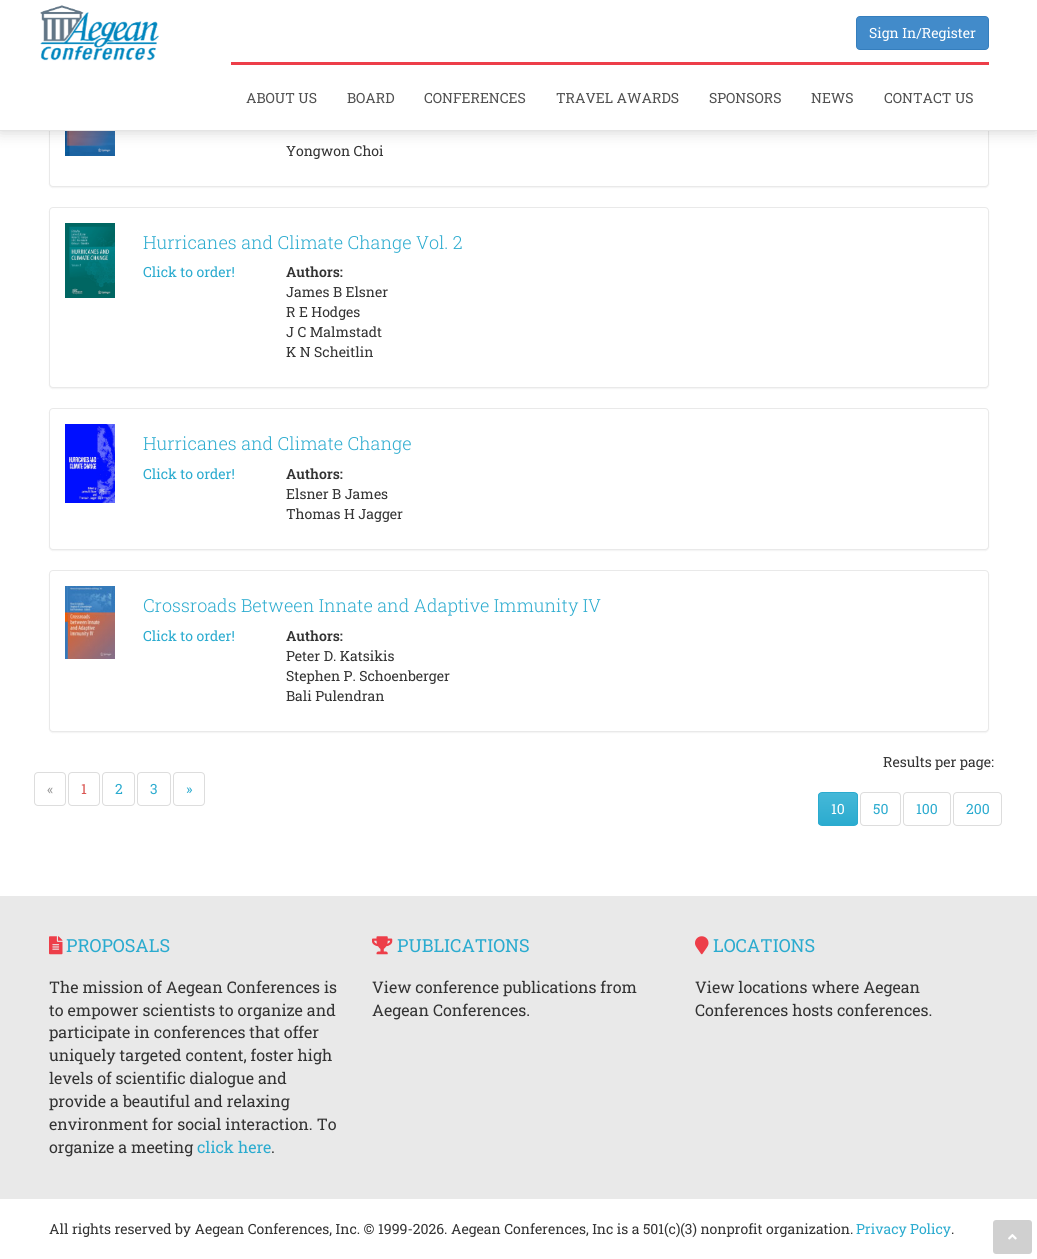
#include <cairo/cairo.h>
#include <math.h>
#include <stddef.h>

static cairo_t *cr;

static void use_color(int r, int g, int b) {
  cairo_set_source_rgb(cr, r / 255.0, g / 255.0, b / 255.0);
}

static void text(double x, double y, const char *s, const char *family, double size, int italic, int bold, int r, int g, int b) {
  cairo_select_font_face(cr, family, italic ? CAIRO_FONT_SLANT_ITALIC : CAIRO_FONT_SLANT_NORMAL,
    bold ? CAIRO_FONT_WEIGHT_BOLD : CAIRO_FONT_WEIGHT_NORMAL);
  cairo_set_font_size(cr, size);
  use_color(r, g, b);
  cairo_move_to(cr, x, y);
  cairo_show_text(cr, s);
}

static void box(double x, double y, double w, double h, int r, int g, int b) {
  use_color(r, g, b);
  cairo_rectangle(cr, x, y, w, h);
  cairo_fill(cr);
}

static void round_rect(double x, double y, double w, double h, double r) {
  cairo_new_sub_path(cr);
  cairo_arc(cr, x + w - r, y + h - r, r, 0, M_PI / 2);
  cairo_arc(cr, x + r, y + h - r, r, M_PI / 2, M_PI);
  cairo_arc(cr, x + r, y + r, r, M_PI, 1.5 * M_PI);
  cairo_arc(cr, x + w - r, y + r, r, 1.5 * M_PI, 2 * M_PI);
  cairo_close_path(cr);
}

static void shadow(double x, double y, double w, double h, double r, double blur, double alpha) {
  cairo_push_group_with_content(cr, CAIRO_CONTENT_ALPHA);
  cairo_set_operator(cr, CAIRO_OPERATOR_SOURCE);
  for (int i = 15; i >= -15 && fmin(w, h) + blur * i / 3 > 0; i -= 2) {
    double e = blur * i / 6;
    cairo_set_source_rgba(cr, 0, 0, 0, alpha * erfc((i - 1) / 8.5) / 2);
    round_rect(x - e, y - e, w + 2 * e, h + 2 * e, fmax(0, fmin(r + e + blur * .6, fmin(w, h) / 2 + e)));
    cairo_fill(cr);
  }
  cairo_pattern_t *soft = cairo_pop_group(cr);
  cairo_mask(cr, soft);
  cairo_pattern_destroy(soft);
}

static void picture(const char *path, double x, double y, double w, double h) {
  cairo_surface_t *image = cairo_image_surface_create_from_png(path);
  cairo_save(cr);
  cairo_set_source_surface(cr, image, x, y);
  cairo_rectangle(cr, x, y, w, h);
  cairo_fill(cr);
  cairo_restore(cr);
  cairo_surface_destroy(image);
}

static void draw(void) {
  cairo_pattern_t *gradient;
  use_color(255, 255, 255);
  cairo_paint(cr);
  use_color(0, 0, 0);
  shadow(49, 66, 940, 122, 4, 0.5, 0.05);
  use_color(255, 255, 255);
  round_rect(49.5, 65.5, 939, 121, 3.5);
  cairo_fill_preserve(cr);
  use_color(233, 233, 233);
  cairo_set_line_width(cr, 1);
  cairo_stroke(cr);
  picture("img_02.png", 65, 131, 50, 25);
  use_color(0, 0, 0);
  shadow(0, 0, 1037, 131, 0, 8, 0.18);
  box(0, 0, 1037, 130, 255, 255, 255);
  box(0, 130, 1037, 1, 228, 228, 228);
  picture("img_01.png", 40, 5, 119, 56);
  use_color(66, 139, 202);
  round_rect(856.5, 16.5, 132, 33, 3.5);
  cairo_fill_preserve(cr);
  use_color(53, 126, 189);
  cairo_stroke(cr);
  box(231, 62, 758, 3, 237, 62, 73);
  use_color(0, 0, 0);
  shadow(49, 208, 940, 181, 4, 0.5, 0.05);
  use_color(255, 255, 255);
  round_rect(49.5, 207.5, 939, 180, 3.5);
  cairo_fill_preserve(cr);
  use_color(233, 233, 233);
  cairo_stroke(cr);
  picture("img_03.png", 65, 223, 50, 75);
  use_color(0, 0, 0);
  shadow(49, 409, 940, 142, 4, 0.5, 0.05);
  use_color(255, 255, 255);
  round_rect(49.5, 408.5, 939, 141, 3.5);
  cairo_fill_preserve(cr);
  use_color(233, 233, 233);
  cairo_stroke(cr);
  picture("img_04.png", 65, 424, 50, 79);
  use_color(0, 0, 0);
  shadow(49, 571, 940, 162, 4, 0.5, 0.05);
  use_color(255, 255, 255);
  round_rect(49.5, 570.5, 939, 161, 3.5);
  cairo_fill_preserve(cr);
  use_color(233, 233, 233);
  cairo_stroke(cr);
  picture("img_05.png", 65, 586, 50, 73);
  round_rect(34.5, 772.5, 31, 33, 3.5);
  use_color(221, 221, 221);
  cairo_stroke(cr);
  round_rect(68.5, 772.5, 31, 33, 3.5);
  cairo_stroke(cr);
  round_rect(102.5, 772.5, 32, 33, 3.5);
  cairo_stroke(cr);
  round_rect(137.5, 772.5, 33, 33, 3.5);
  cairo_stroke(cr);
  round_rect(173.5, 772.5, 31, 33, 3.5);
  cairo_stroke(cr);
  cairo_save(cr);
  round_rect(818, 792, 40, 34, 4);
  cairo_clip(cr);
  gradient = cairo_pattern_create_linear(838, 793, 838, 825);
  cairo_pattern_add_color_stop_rgba(gradient, 0, 0.271, 0.722, 0.847, 1);
  cairo_pattern_add_color_stop_rgba(gradient, 1, 0.169, 0.671, 0.812, 1);
  cairo_set_source(cr, gradient);
  cairo_pattern_destroy(gradient);
  cairo_rectangle(cr, 818, 793, 40, 32);
  cairo_fill(cr);
  cairo_restore(cr);
  round_rect(818.5, 792.5, 39, 33, 3.5);
  use_color(43, 171, 207);
  cairo_stroke(cr);
  round_rect(860.5, 792.5, 40, 33, 3.5);
  use_color(221, 221, 221);
  cairo_stroke(cr);
  round_rect(903.5, 792.5, 47, 33, 3.5);
  cairo_stroke(cr);
  round_rect(953.5, 792.5, 48, 33, 3.5);
  cairo_stroke(cr);
  box(0, 896, 1037, 303, 233, 233, 233);
  picture("img_06.png", 49, 936, 14, 19);
  picture("img_07.png", 372, 936, 21, 19);
  picture("img_08.png", 695, 936, 14, 19);
  use_color(208, 208, 208);
  round_rect(993, 1220, 39, 34, 3);
  cairo_fill(cr);
  picture("img_09.png", 1008, 1234, 9, 6);
  text(869, 38, "Sign In/Register", "Roboto Slab", 14, 0, 0, 255, 255, 255);
  text(246, 103, "ABOUT US", "Roboto Slab", 14, 0, 0, 80, 80, 80);
  text(347, 103, "BOARD", "Roboto Slab", 14, 0, 0, 80, 80, 80);
  text(424, 103, "CONFERENCES", "Roboto Slab", 14, 0, 0, 80, 80, 80);
  text(556, 103, "TRAVEL AWARDS", "Roboto Slab", 14, 0, 0, 80, 80, 80);
  text(709, 103, "SPONSORS", "Roboto Slab", 14, 0, 0, 80, 80, 80);
  text(811, 103, "NEWS", "Roboto Slab", 14, 0, 0, 80, 80, 80);
  text(884, 103, "CONTACT US", "Roboto Slab", 14, 0, 0, 80, 80, 80);
  text(286, 156, "Yongwon Choi", "Roboto Slab", 14, 0, 0, 51, 51, 51);
  text(143, 249, "Hurricanes and Climate Change Vol. 2", "Roboto Slab Light", 18, 0, 0, 43, 171, 207);
  text(143, 277, "Click to order!", "Roboto Slab", 14, 0, 0, 43, 171, 207);
  text(286, 277, "Authors:", "Roboto Slab SemiBold", 14, 0, 0, 51, 51, 51);
  text(286, 297, "James B Elsner", "Roboto Slab", 14, 0, 0, 51, 51, 51);
  text(286, 317, "R E Hodges", "Roboto Slab", 14, 0, 0, 51, 51, 51);
  text(286, 337, "J C Malmstadt", "Roboto Slab", 14, 0, 0, 51, 51, 51);
  text(286, 357, "K N Scheitlin", "Roboto Slab", 14, 0, 0, 51, 51, 51);
  text(143, 450, "Hurricanes and Climate Change", "Roboto Slab Light", 18, 0, 0, 43, 171, 207);
  text(143, 479, "Click to order!", "Roboto Slab", 14, 0, 0, 43, 171, 207);
  text(286, 479, "Authors:", "Roboto Slab SemiBold", 14, 0, 0, 51, 51, 51);
  text(286, 499, "Elsner B James", "Roboto Slab", 14, 0, 0, 51, 51, 51);
  text(286, 519, "Thomas H Jagger", "Roboto Slab", 14, 0, 0, 51, 51, 51);
  text(143, 612, "Crossroads Between Innate and Adaptive Immunity IV", "Roboto Slab Light", 18, 0, 0, 43, 171, 207);
  text(143, 641, "Click to order!", "Roboto Slab", 14, 0, 0, 43, 171, 207);
  text(286, 641, "Authors:", "Roboto Slab SemiBold", 14, 0, 0, 51, 51, 51);
  text(286, 661, "Peter D. Katsikis", "Roboto Slab", 14, 0, 0, 51, 51, 51);
  text(286, 681, "Stephen P. Schoenberger", "Roboto Slab", 14, 0, 0, 51, 51, 51);
  text(286, 701, "Bali Pulendran", "Roboto Slab", 14, 0, 0, 51, 51, 51);
  text(47, 794, "«", "Roboto Slab", 14, 0, 0, 153, 153, 153);
  text(81, 794, "1", "Roboto Slab", 14, 0, 0, 217, 83, 79);
  text(115, 794, "2", "Roboto Slab", 14, 0, 0, 43, 171, 207);
  text(150, 794, "3", "Roboto Slab", 14, 0, 0, 43, 171, 207);
  text(186, 794, "»", "Roboto Slab", 14, 0, 0, 43, 171, 207);
  text(883, 767, "Results per page:", "Roboto Slab", 14, 0, 0, 51, 51, 51);
  text(831, 814, "10", "Roboto Slab", 14, 0, 0, 255, 255, 255);
  text(873, 814, "50", "Roboto Slab", 14, 0, 0, 43, 171, 207);
  text(916, 814, "100", "Roboto Slab", 14, 0, 0, 43, 171, 207);
  text(966, 814, "200", "Roboto Slab", 14, 0, 0, 43, 171, 207);
  text(66, 952, "PROPOSALS", "Roboto Slab", 18, 0, 0, 43, 171, 207);
  text(49, 993, "The mission of Aegean Conferences is", "Roboto Slab", 16, 0, 0, 51, 51, 51);
  text(49, 1016, "to empower scientists to organize and", "Roboto Slab", 16, 0, 0, 51, 51, 51);
  text(49, 1038, "participate in conferences that offer", "Roboto Slab", 16, 0, 0, 51, 51, 51);
  text(49, 1061, "uniquely targeted content, foster high", "Roboto Slab", 16, 0, 0, 51, 51, 51);
  text(49, 1084, "levels of scientific dialogue and", "Roboto Slab", 16, 0, 0, 51, 51, 51);
  text(49, 1107, "provide a beautiful and relaxing", "Roboto Slab", 16, 0, 0, 51, 51, 51);
  text(49, 1130, "environment for social interaction. To", "Roboto Slab", 16, 0, 0, 51, 51, 51);
  text(49, 1153, "organize a meeting", "Roboto Slab", 16, 0, 0, 51, 51, 51);
  text(197, 1153, "click here", "Roboto Slab", 16, 0, 0, 43, 171, 207);
  text(271, 1153, ".", "Roboto Slab", 16, 0, 0, 51, 51, 51);
  text(397, 952, "PUBLICATIONS", "Roboto Slab", 18, 0, 0, 43, 171, 207);
  text(372, 993, "View conference publications from", "Roboto Slab", 16, 0, 0, 51, 51, 51);
  text(372, 1016, "Aegean Conferences.", "Roboto Slab", 16, 0, 0, 51, 51, 51);
  text(713, 952, "LOCATIONS", "Roboto Slab", 18, 0, 0, 43, 171, 207);
  text(695, 993, "View locations where Aegean", "Roboto Slab", 16, 0, 0, 51, 51, 51);
  text(695, 1016, "Conferences hosts conferences.", "Roboto Slab", 16, 0, 0, 51, 51, 51);
  text(49, 1234, "All rights reserved by Aegean Conferences, Inc. © 1999-2026. Aegean Conferences, Inc is a 501(c)(3) nonprofit organization.", "Roboto Slab", 14, 0, 0, 51, 51, 51);
  text(856, 1234, "Privacy Policy", "Roboto Slab", 14, 0, 0, 43, 171, 207);
  text(951, 1234, ".", "Roboto Slab", 14, 0, 0, 51, 51, 51);
}

int main(void) {
  cairo_surface_t *surface = cairo_image_surface_create(CAIRO_FORMAT_RGB24, 1037, 1259);
  cr = cairo_create(surface);
  cairo_font_options_t *options = cairo_font_options_create();
  cairo_font_options_set_hint_metrics(options, CAIRO_HINT_METRICS_OFF);
  cairo_font_options_set_hint_style(options, CAIRO_HINT_STYLE_NONE);
  cairo_set_font_options(cr, options);
  cairo_set_miter_limit(cr, 4);
  draw();
  cairo_surface_write_to_png(surface, "out.png");
  cairo_font_options_destroy(options);
  cairo_destroy(cr);
  cairo_surface_destroy(surface);
  return 0;
}
